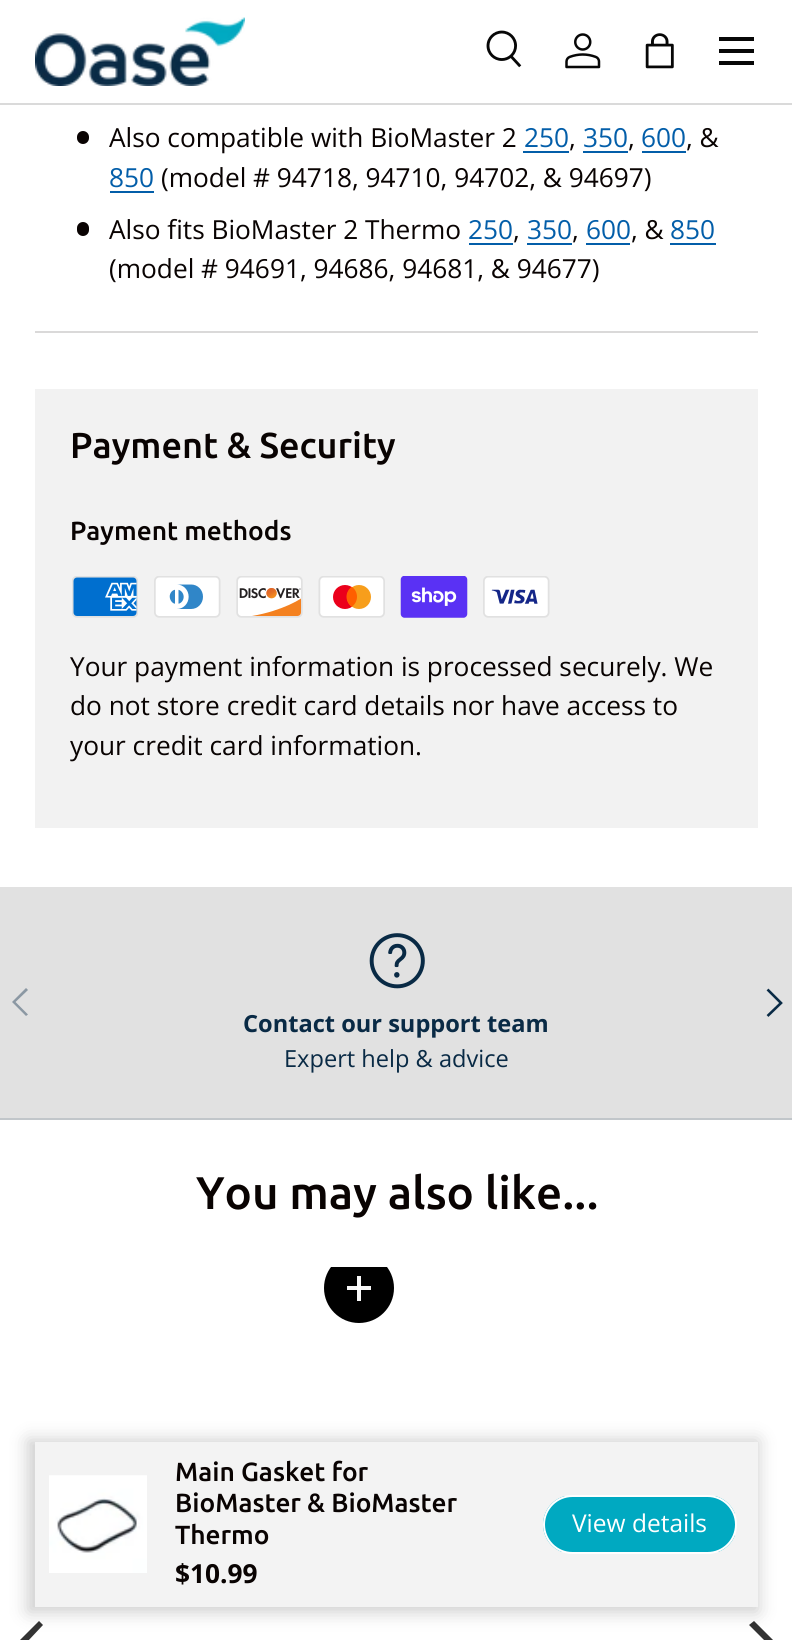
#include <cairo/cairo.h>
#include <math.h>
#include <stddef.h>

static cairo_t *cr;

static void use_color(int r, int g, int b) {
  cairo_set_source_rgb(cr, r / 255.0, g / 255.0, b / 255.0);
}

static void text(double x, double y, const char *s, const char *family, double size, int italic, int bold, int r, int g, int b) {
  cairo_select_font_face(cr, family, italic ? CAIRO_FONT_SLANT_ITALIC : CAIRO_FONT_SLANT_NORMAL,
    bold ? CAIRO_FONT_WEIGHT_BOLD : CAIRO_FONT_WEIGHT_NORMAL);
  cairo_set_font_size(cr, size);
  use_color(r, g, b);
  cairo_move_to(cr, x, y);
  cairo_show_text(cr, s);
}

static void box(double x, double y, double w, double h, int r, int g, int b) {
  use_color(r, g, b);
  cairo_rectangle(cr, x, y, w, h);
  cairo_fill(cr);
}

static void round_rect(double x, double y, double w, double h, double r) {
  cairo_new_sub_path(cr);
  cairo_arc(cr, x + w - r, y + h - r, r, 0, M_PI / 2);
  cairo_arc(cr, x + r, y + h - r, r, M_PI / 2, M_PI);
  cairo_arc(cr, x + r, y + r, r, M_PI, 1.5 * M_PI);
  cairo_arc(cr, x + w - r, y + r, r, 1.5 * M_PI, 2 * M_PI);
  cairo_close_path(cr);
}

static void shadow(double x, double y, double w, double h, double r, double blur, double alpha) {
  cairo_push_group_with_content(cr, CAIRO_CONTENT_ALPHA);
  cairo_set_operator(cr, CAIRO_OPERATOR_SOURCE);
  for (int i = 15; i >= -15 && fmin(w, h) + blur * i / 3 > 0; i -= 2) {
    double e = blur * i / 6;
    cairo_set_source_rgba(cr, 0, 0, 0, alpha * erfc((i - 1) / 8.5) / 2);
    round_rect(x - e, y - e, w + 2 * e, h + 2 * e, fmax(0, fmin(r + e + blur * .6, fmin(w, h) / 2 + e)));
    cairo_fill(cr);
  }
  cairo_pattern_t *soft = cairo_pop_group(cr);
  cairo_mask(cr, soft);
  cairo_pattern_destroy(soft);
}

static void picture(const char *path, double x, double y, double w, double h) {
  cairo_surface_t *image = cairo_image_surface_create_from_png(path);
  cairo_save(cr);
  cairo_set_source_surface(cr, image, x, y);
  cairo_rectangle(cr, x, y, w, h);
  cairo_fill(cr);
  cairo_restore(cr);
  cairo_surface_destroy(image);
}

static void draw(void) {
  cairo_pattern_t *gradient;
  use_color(255, 255, 255);
  cairo_paint(cr);
  box(0, 103, 792, 2, 218, 218, 218);
  picture("img_01.png", 35, 17, 210, 69);
  picture("img_02.png", 486, 30, 36, 38);
  picture("img_03.png", 565, 33, 36, 36);
  picture("img_04.png", 645, 33, 29, 36);
  box(719, 37, 35, 4, 7, 7, 7);
  box(719, 61, 35, 4, 7, 7, 7);
  box(719, 49, 35, 4, 7, 7, 7);
  box(35, 331, 723, 2, 218, 217, 217);
  use_color(9, 3, 2);
  round_rect(77, 131, 12, 13, 6);
  cairo_fill(cr);
  box(523, 151, 46, 2, 3, 94, 169);
  box(583, 151, 45, 2, 3, 94, 169);
  box(642, 151, 44, 2, 3, 94, 169);
  box(110, 191, 44, 2, 3, 94, 169);
  use_color(9, 3, 2);
  round_rect(77, 222, 12, 14, 6);
  cairo_fill(cr);
  box(469, 243, 44, 2, 3, 94, 169);
  box(527, 243, 45, 2, 3, 94, 169);
  box(586, 243, 44, 2, 3, 94, 169);
  box(670, 243, 46, 2, 3, 94, 169);
  box(35, 389, 723, 439, 242, 242, 242);
  picture("img_05.png", 72, 576, 66, 42);
  picture("img_06.png", 154, 576, 67, 42);
  picture("img_07.png", 236, 576, 67, 42);
  picture("img_08.png", 318, 576, 67, 42);
  picture("img_09.png", 400, 576, 68, 42);
  picture("img_10.png", 483, 576, 67, 42);
  use_color(51, 51, 51);
  cairo_new_path(cr);
  cairo_move_to(cr, 18, 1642);
  cairo_line_to(cr, 39, 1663);
  cairo_line_to(cr, 43, 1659);
  cairo_line_to(cr, 27, 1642);
  cairo_line_to(cr, 43, 1625);
  cairo_line_to(cr, 39, 1621);
  cairo_close_path(cr);
  cairo_fill(cr);
  cairo_new_path(cr);
  cairo_move_to(cr, 775, 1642);
  cairo_line_to(cr, 754, 1621);
  cairo_line_to(cr, 749, 1625);
  cairo_line_to(cr, 766, 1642);
  cairo_line_to(cr, 749, 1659);
  cairo_line_to(cr, 754, 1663);
  cairo_close_path(cr);
  cairo_fill(cr);
  use_color(0, 0, 0);
  shadow(28, 1440, 730, 172, 0, 9, 0.2);
  box(35, 1442, 723, 165, 243, 243, 243);
  picture("img_11.png", 49, 1475, 98, 98);
  cairo_save(cr);
  round_rect(543, 1495, 194, 59, 29.5);
  cairo_clip(cr);
  gradient = cairo_pattern_create_linear(173, 1455, 725, 1593);
  cairo_pattern_add_color_stop_rgba(gradient, 0.6, 1, 1, 1, 0.07);
  cairo_pattern_add_color_stop_rgba(gradient, 0.6, 0, 0.663, 0.757, 1);
  cairo_pattern_add_color_stop_rgba(gradient, 1, 0, 0.663, 0.757, 1);
  cairo_set_source(cr, gradient);
  cairo_pattern_destroy(gradient);
  cairo_rectangle(cr, 543, 1496, 192, 56);
  cairo_fill(cr);
  cairo_restore(cr);
  round_rect(544, 1496, 192, 57, 28.5);
  use_color(255, 255, 255);
  cairo_stroke(cr);
  box(0, 887, 792, 231, 225, 225, 225);
  box(0, 1118, 792, 2, 193, 198, 202);
  use_color(139, 152, 163);
  cairo_new_path(cr);
  cairo_move_to(cr, 12, 1002);
  cairo_line_to(cr, 26, 988);
  cairo_line_to(cr, 28, 990);
  cairo_line_to(cr, 15.5, 1002);
  cairo_line_to(cr, 28, 1014.5);
  cairo_line_to(cr, 26, 1016);
  cairo_close_path(cr);
  cairo_fill(cr);
  cairo_new_path(cr);
  cairo_move_to(cr, 767.5, 989.5);
  cairo_line_to(cr, 781, 1003);
  cairo_line_to(cr, 767.5, 1016);
  use_color(9, 42, 69);
  cairo_set_line_width(cr, 2.6);
  cairo_stroke(cr);
  picture("img_12.png", 369, 933, 56, 56);
  cairo_save(cr);
  cairo_rectangle(cr, 70, 1267, 653, 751);
  cairo_clip(cr);
  use_color(0, 0, 0);
  cairo_arc(cr, 359, 1288, 35, 0, 2 * M_PI);
  cairo_fill(cr);
  cairo_restore(cr);
  box(347, 1286, 24, 4, 247, 247, 247);
  box(357, 1276, 4, 25, 249, 249, 249);
  box(357, 1286, 4, 4, 255, 255, 255);
  text(109, 147, "Also compatible with BioMaster 2", "Open Sans", 26.25, 0, 0, 9, 3, 2);
  text(524, 147, "250", "Open Sans", 26.25, 0, 0, 3, 94, 169);
  text(583, 147, "350", "Open Sans", 26.25, 0, 0, 3, 94, 169);
  text(641, 147, "600", "Open Sans", 26.25, 0, 0, 3, 94, 169);
  text(686, 147, ", &", "Open Sans", 26.25, 0, 0, 9, 3, 2);
  text(569, 147, ",", "Open Sans", 26.25, 0, 0, 9, 3, 2);
  text(628, 147, ",", "Open Sans", 26.25, 0, 0, 9, 3, 2);
  text(109, 187, "850", "Open Sans", 26.25, 0, 0, 3, 94, 169);
  text(161, 187, "(model # 94718, 94710, 94702, & 94697)", "Open Sans", 26.25, 0, 0, 9, 3, 2);
  text(109, 239, "Also fits BioMaster 2 Thermo", "Open Sans", 26.25, 0, 0, 9, 3, 2);
  text(468, 239, "250", "Open Sans", 26.25, 0, 0, 3, 94, 169);
  text(527, 239, "350", "Open Sans", 26.25, 0, 0, 3, 94, 169);
  text(586, 239, "600", "Open Sans", 26.25, 0, 0, 3, 94, 169);
  text(631, 239, ", &", "Open Sans", 26.25, 0, 0, 9, 3, 2);
  text(670, 239, "850", "Open Sans", 26.25, 0, 0, 3, 94, 169);
  text(513, 239, ",", "Open Sans", 26.25, 0, 0, 9, 3, 2);
  text(572, 239, ",", "Open Sans", 26.25, 0, 0, 9, 3, 2);
  text(109, 278, "(model # 94691, 94686, 94681, & 94677)", "Open Sans", 26.25, 0, 0, 9, 3, 2);
  text(70, 458, "Payment & Security", "Ubuntu Medium", 36, 0, 0, 9, 3, 2);
  text(70, 540, "Payment methods", "Ubuntu Medium", 26.25, 0, 0, 9, 3, 2);
  text(70, 676, "Your payment information is processed securely. We", "Open Sans", 26.25, 0, 0, 9, 3, 2);
  text(70, 715, "do not store credit card details nor have access to", "Open Sans", 26.25, 0, 0, 9, 3, 2);
  text(70, 755, "your credit card information.", "Open Sans", 26.25, 0, 0, 9, 3, 2);
  text(175, 1481, "Main Gasket for", "Ubuntu Medium", 26.25, 0, 0, 9, 3, 2);
  text(175, 1512, "BioMaster & BioMaster", "Ubuntu Medium", 26.25, 0, 0, 9, 3, 2);
  text(175, 1544, "Thermo", "Ubuntu Medium", 26.25, 0, 0, 9, 3, 2);
  text(175, 1583, "$10.99", "Open Sans", 26.25, 0, 1, 9, 3, 2);
  text(572, 1532, "View details", "Open Sans", 24.5, 0, 0, 255, 255, 255);
  text(243, 1032, "Contact our support team", "Open Sans", 23.6, 0, 1, 9, 42, 69);
  text(284, 1067, "Expert help & advice", "Open Sans", 23.6, 0, 0, 9, 42, 69);
  text(196, 1209, "You may also like...", "Ubuntu Medium", 45.75, 0, 0, 9, 3, 2);
}

int main(void) {
  cairo_surface_t *surface = cairo_image_surface_create(CAIRO_FORMAT_RGB24, 792, 1640);
  cr = cairo_create(surface);
  cairo_font_options_t *options = cairo_font_options_create();
  cairo_font_options_set_hint_metrics(options, CAIRO_HINT_METRICS_OFF);
  cairo_font_options_set_hint_style(options, CAIRO_HINT_STYLE_NONE);
  cairo_set_font_options(cr, options);
  cairo_set_miter_limit(cr, 4);
  draw();
  cairo_surface_write_to_png(surface, "out.png");
  cairo_font_options_destroy(options);
  cairo_destroy(cr);
  cairo_surface_destroy(surface);
  return 0;
}
